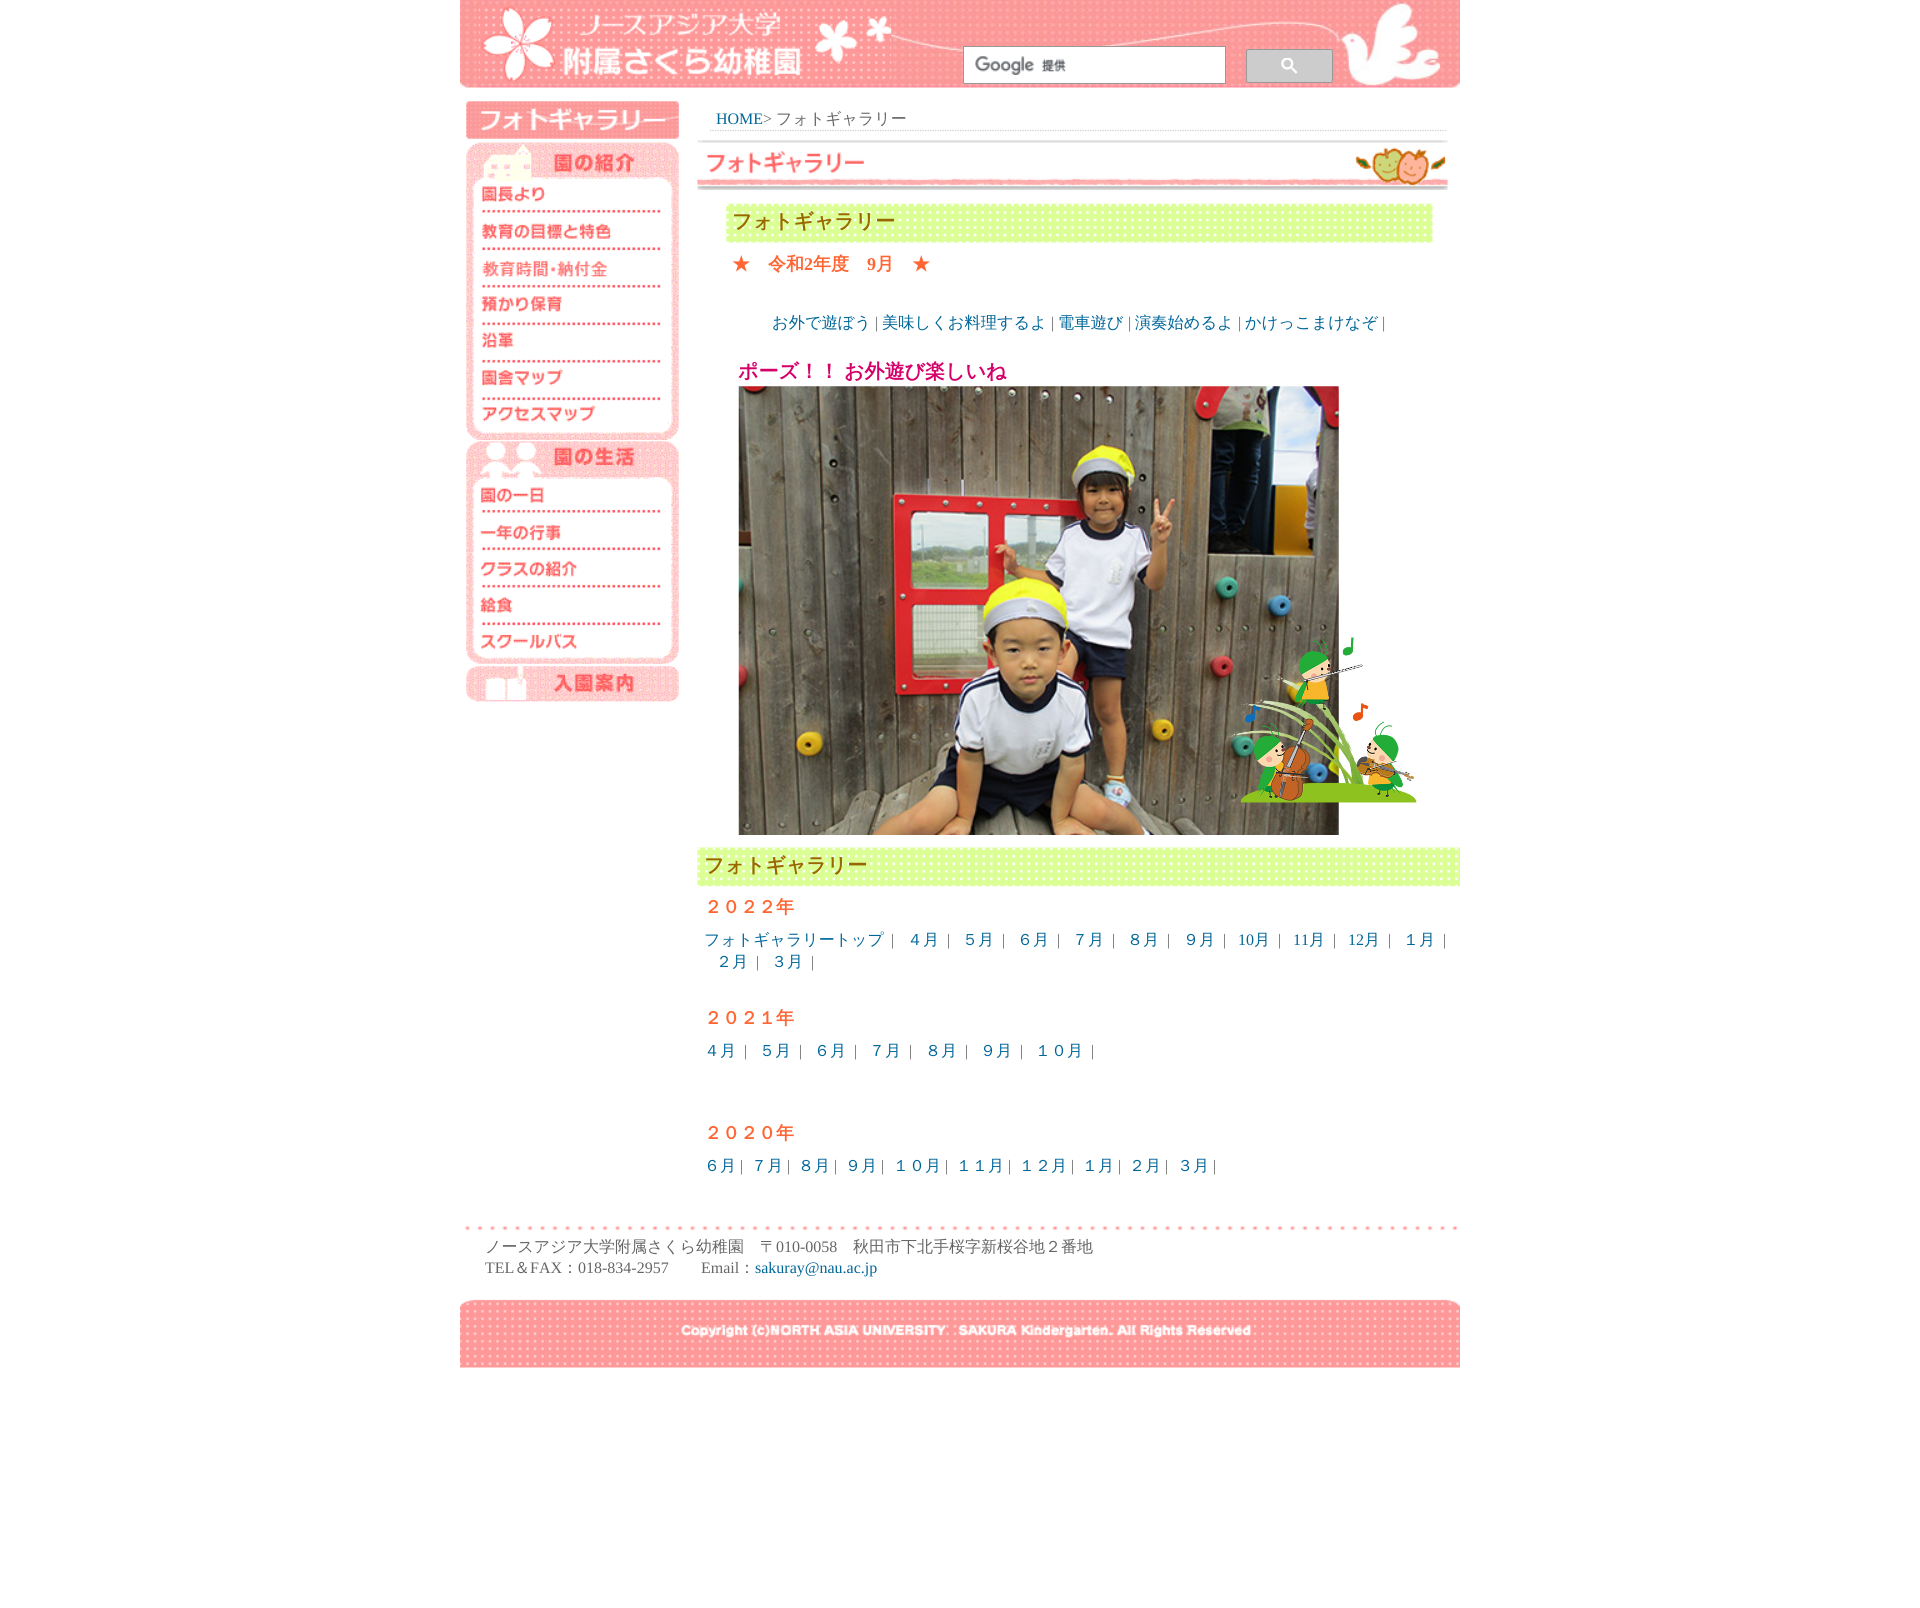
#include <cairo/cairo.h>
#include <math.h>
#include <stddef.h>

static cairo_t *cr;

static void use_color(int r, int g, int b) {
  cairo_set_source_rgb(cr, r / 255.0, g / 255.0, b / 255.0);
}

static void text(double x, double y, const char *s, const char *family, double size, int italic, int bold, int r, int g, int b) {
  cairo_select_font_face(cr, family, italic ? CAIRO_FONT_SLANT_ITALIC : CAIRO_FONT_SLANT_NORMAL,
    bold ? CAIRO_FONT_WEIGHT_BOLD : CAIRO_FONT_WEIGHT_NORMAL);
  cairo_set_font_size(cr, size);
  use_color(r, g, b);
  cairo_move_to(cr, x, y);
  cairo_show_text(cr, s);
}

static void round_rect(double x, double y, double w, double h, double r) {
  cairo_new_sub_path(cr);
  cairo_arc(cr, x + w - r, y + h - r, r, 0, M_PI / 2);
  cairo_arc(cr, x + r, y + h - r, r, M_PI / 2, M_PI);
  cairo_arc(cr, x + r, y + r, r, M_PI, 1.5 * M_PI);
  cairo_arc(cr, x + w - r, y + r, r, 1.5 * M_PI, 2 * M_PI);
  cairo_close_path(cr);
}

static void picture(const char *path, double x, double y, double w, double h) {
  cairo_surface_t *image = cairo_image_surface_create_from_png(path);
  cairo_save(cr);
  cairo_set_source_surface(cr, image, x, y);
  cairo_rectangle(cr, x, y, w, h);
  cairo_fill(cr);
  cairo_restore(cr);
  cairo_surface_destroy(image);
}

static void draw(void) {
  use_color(255, 255, 255);
  cairo_paint(cr);
  picture("img_01.png", 460, 0, 1000, 88);
  picture("img_02.png", 478, 6, 414, 76);
  use_color(255, 255, 255);
  cairo_rectangle(cr, 963.5, 46.5, 262, 37);
  cairo_fill_preserve(cr);
  use_color(153, 153, 153);
  cairo_set_line_width(cr, 1);
  cairo_stroke(cr);
  picture("img_03.png", 975, 56, 91, 19);
  use_color(204, 204, 204);
  round_rect(1246.5, 49.5, 86, 33, 2);
  cairo_fill_preserve(cr);
  use_color(153, 153, 153);
  cairo_stroke(cr);
  picture("img_04.png", 1281, 58, 17, 16);
  picture("img_05.png", 466, 101, 213, 38);
  picture("img_06.png", 466, 142, 213, 36);
  picture("img_07.png", 466, 177, 213, 38);
  picture("img_08.png", 466, 215, 213, 38);
  picture("img_09.png", 466, 252, 213, 38);
  picture("img_10.png", 466, 290, 213, 38);
  picture("img_11.png", 466, 327, 213, 38);
  picture("img_12.png", 466, 365, 213, 38);
  picture("img_13.png", 466, 402, 213, 38);
  picture("img_14.png", 466, 441, 213, 37);
  picture("img_15.png", 466, 477, 213, 38);
  picture("img_16.png", 466, 515, 213, 38);
  picture("img_17.png", 466, 552, 213, 38);
  picture("img_18.png", 466, 590, 213, 38);
  picture("img_19.png", 466, 627, 213, 37);
  picture("img_20.png", 466, 666, 213, 36);
  cairo_new_path(cr);
  cairo_move_to(cr, 710, 130.5);
  cairo_line_to(cr, 1447.5, 130.5);
  use_color(204, 204, 204);
  cairo_set_line_width(cr, 1.2);
  cairo_set_dash(cr, (double[]){1.25, 1.25}, 2, 0);
  cairo_stroke(cr);
  picture("img_21.png", 697, 140, 751, 50);
  picture("img_22.png", 726, 203, 707, 40);
  picture("img_23.png", 738, 386, 601, 449);
  picture("img_24.png", 1229, 637, 188, 166);
  picture("img_25.png", 697, 847, 763, 40);
  picture("img_26.png", 460, 1226, 998, 5);
  picture("img_27.png", 460, 1299, 1000, 69);
  text(716, 124, "HOME", "Liberation Serif", 16, 0, 0, 0, 102, 153);
  text(763, 124, ">", "Liberation Serif", 16, 0, 0, 102, 102, 102);
  text(776, 124, "フォトギャラリー", "WenQuanYi Zen Hei Medium", 16, 0, 0, 102, 102, 102);
  text(732, 228, "フォトギャラリー", "WenQuanYi Zen Hei", 20, 0, 1, 153, 102, 0);
  text(732, 270, "★　令和", "WenQuanYi Zen Hei", 18, 0, 1, 255, 102, 51);
  text(804, 270, "2", "Liberation Serif", 18, 0, 1, 255, 102, 51);
  text(813, 270, "年度", "WenQuanYi Zen Hei", 18, 0, 1, 255, 102, 51);
  text(867, 270, "9", "Liberation Serif", 18, 0, 1, 255, 102, 51);
  text(876, 270, "月　★", "WenQuanYi Zen Hei", 18, 0, 1, 255, 102, 51);
  text(772, 328, "お外で遊ぼう", "WenQuanYi Zen Hei Medium", 16.25, 0, 0, 0, 102, 153);
  text(875, 328, "|", "Liberation Serif", 16.25, 0, 0, 102, 102, 102);
  text(882, 328, "美味しくお料理するよ", "WenQuanYi Zen Hei Medium", 16.25, 0, 0, 0, 102, 153);
  text(1051, 328, "|", "Liberation Serif", 16.25, 0, 0, 102, 102, 102);
  text(1058, 328, "電車遊び", "WenQuanYi Zen Hei Medium", 16.25, 0, 0, 0, 102, 153);
  text(1128, 328, "|", "Liberation Serif", 16.25, 0, 0, 102, 102, 102);
  text(1135, 328, "演奏始めるよ", "WenQuanYi Zen Hei Medium", 16.25, 0, 0, 0, 102, 153);
  text(1238, 328, "|", "Liberation Serif", 16.25, 0, 0, 102, 102, 102);
  text(1245, 328, "かけっこまけなぞ", "WenQuanYi Zen Hei Medium", 16.25, 0, 0, 0, 102, 153);
  text(1382, 328, "|", "Liberation Serif", 16.25, 0, 0, 102, 102, 102);
  text(738, 378, "ポーズ！！", "WenQuanYi Zen Hei", 20, 0, 1, 213, 0, 106);
  text(844, 378, "お外遊び楽しいね", "WenQuanYi Zen Hei", 20, 0, 1, 213, 0, 106);
  text(704, 872, "フォトギャラリー", "WenQuanYi Zen Hei", 20, 0, 1, 153, 102, 0);
  text(704, 913, "２０２２年", "WenQuanYi Zen Hei", 18, 0, 1, 255, 102, 51);
  text(704, 945, "フォトギャラリートップ", "WenQuanYi Zen Hei Medium", 16, 0, 0, 0, 102, 153);
  text(891, 945, "|", "Liberation Serif", 16, 0, 0, 102, 102, 102);
  text(907, 945, "４月", "WenQuanYi Zen Hei Medium", 16, 0, 0, 0, 102, 153);
  text(947, 945, "|", "Liberation Serif", 16, 0, 0, 102, 102, 102);
  text(962, 945, "５月", "WenQuanYi Zen Hei Medium", 16, 0, 0, 0, 102, 153);
  text(1002, 945, "|", "Liberation Serif", 16, 0, 0, 102, 102, 102);
  text(1017, 945, "６月", "WenQuanYi Zen Hei Medium", 16, 0, 0, 0, 102, 153);
  text(1057, 945, "|", "Liberation Serif", 16, 0, 0, 102, 102, 102);
  text(1072, 945, "７月", "WenQuanYi Zen Hei Medium", 16, 0, 0, 0, 102, 153);
  text(1112, 945, "|", "Liberation Serif", 16, 0, 0, 102, 102, 102);
  text(1127, 945, "８月", "WenQuanYi Zen Hei Medium", 16, 0, 0, 0, 102, 153);
  text(1167, 945, "|", "Liberation Serif", 16, 0, 0, 102, 102, 102);
  text(1183, 945, "９月", "WenQuanYi Zen Hei Medium", 16, 0, 0, 0, 102, 153);
  text(1223, 945, "|", "Liberation Serif", 16, 0, 0, 102, 102, 102);
  text(1238, 945, "10", "Liberation Serif", 16, 0, 0, 0, 102, 153);
  text(1254, 945, "月", "WenQuanYi Zen Hei Medium", 16, 0, 0, 0, 102, 153);
  text(1278, 945, "|", "Liberation Serif", 16, 0, 0, 102, 102, 102);
  text(1293, 945, "11", "Liberation Serif", 16, 0, 0, 0, 102, 153);
  text(1309, 945, "月", "WenQuanYi Zen Hei Medium", 16, 0, 0, 0, 102, 153);
  text(1333, 945, "|", "Liberation Serif", 16, 0, 0, 102, 102, 102);
  text(1348, 945, "12", "Liberation Serif", 16, 0, 0, 0, 102, 153);
  text(1364, 945, "月", "WenQuanYi Zen Hei Medium", 16, 0, 0, 0, 102, 153);
  text(1388, 945, "|", "Liberation Serif", 16, 0, 0, 102, 102, 102);
  text(1403, 945, "１月", "WenQuanYi Zen Hei Medium", 16, 0, 0, 0, 102, 153);
  text(1443, 945, "|", "Liberation Serif", 16, 0, 0, 102, 102, 102);
  text(716, 967, "２月", "WenQuanYi Zen Hei Medium", 16, 0, 0, 0, 102, 153);
  text(756, 967, "|", "Liberation Serif", 16, 0, 0, 102, 102, 102);
  text(771, 967, "３月", "WenQuanYi Zen Hei Medium", 16, 0, 0, 0, 102, 153);
  text(811, 967, "|", "Liberation Serif", 16, 0, 0, 102, 102, 102);
  text(704, 1024, "２０２１年", "WenQuanYi Zen Hei", 18, 0, 1, 255, 102, 51);
  text(704, 1056, "４月", "WenQuanYi Zen Hei Medium", 16, 0, 0, 0, 102, 153);
  text(744, 1056, "|", "Liberation Serif", 16, 0, 0, 102, 102, 102);
  text(759, 1056, "５月", "WenQuanYi Zen Hei Medium", 16, 0, 0, 0, 102, 153);
  text(799, 1056, "|", "Liberation Serif", 16, 0, 0, 102, 102, 102);
  text(814, 1056, "６月", "WenQuanYi Zen Hei Medium", 16, 0, 0, 0, 102, 153);
  text(854, 1056, "|", "Liberation Serif", 16, 0, 0, 102, 102, 102);
  text(869, 1056, "７月", "WenQuanYi Zen Hei Medium", 16, 0, 0, 0, 102, 153);
  text(909, 1056, "|", "Liberation Serif", 16, 0, 0, 102, 102, 102);
  text(925, 1056, "８月", "WenQuanYi Zen Hei Medium", 16, 0, 0, 0, 102, 153);
  text(965, 1056, "|", "Liberation Serif", 16, 0, 0, 102, 102, 102);
  text(980, 1056, "９月", "WenQuanYi Zen Hei Medium", 16, 0, 0, 0, 102, 153);
  text(1020, 1056, "|", "Liberation Serif", 16, 0, 0, 102, 102, 102);
  text(1035, 1056, "１０月", "WenQuanYi Zen Hei Medium", 16, 0, 0, 0, 102, 153);
  text(1091, 1056, "|", "Liberation Serif", 16, 0, 0, 102, 102, 102);
  text(704, 1139, "２０２０年", "WenQuanYi Zen Hei", 18, 0, 1, 255, 102, 51);
  text(704, 1171, "６月", "WenQuanYi Zen Hei Medium", 16, 0, 0, 0, 102, 153);
  text(740, 1171, "|", "Liberation Serif", 16, 0, 0, 102, 102, 102);
  text(751, 1171, "７月", "WenQuanYi Zen Hei Medium", 16, 0, 0, 0, 102, 153);
  text(787, 1171, "|", "Liberation Serif", 16, 0, 0, 102, 102, 102);
  text(798, 1171, "８月", "WenQuanYi Zen Hei Medium", 16, 0, 0, 0, 102, 153);
  text(834, 1171, "|", "Liberation Serif", 16, 0, 0, 102, 102, 102);
  text(845, 1171, "９月", "WenQuanYi Zen Hei Medium", 16, 0, 0, 0, 102, 153);
  text(881, 1171, "|", "Liberation Serif", 16, 0, 0, 102, 102, 102);
  text(893, 1171, "１０月", "WenQuanYi Zen Hei Medium", 16, 0, 0, 0, 102, 153);
  text(945, 1171, "|", "Liberation Serif", 16, 0, 0, 102, 102, 102);
  text(956, 1171, "１１月", "WenQuanYi Zen Hei Medium", 16, 0, 0, 0, 102, 153);
  text(1008, 1171, "|", "Liberation Serif", 16, 0, 0, 102, 102, 102);
  text(1019, 1171, "１２月", "WenQuanYi Zen Hei Medium", 16, 0, 0, 0, 102, 153);
  text(1071, 1171, "|", "Liberation Serif", 16, 0, 0, 102, 102, 102);
  text(1082, 1171, "１月", "WenQuanYi Zen Hei Medium", 16, 0, 0, 0, 102, 153);
  text(1118, 1171, "|", "Liberation Serif", 16, 0, 0, 102, 102, 102);
  text(1129, 1171, "２月", "WenQuanYi Zen Hei Medium", 16, 0, 0, 0, 102, 153);
  text(1165, 1171, "|", "Liberation Serif", 16, 0, 0, 102, 102, 102);
  text(1177, 1171, "３月", "WenQuanYi Zen Hei Medium", 16, 0, 0, 0, 102, 153);
  text(1213, 1171, "|", "Liberation Serif", 16, 0, 0, 102, 102, 102);
  text(485, 1252, "ノースアジア大学附属さくら幼稚園　〒", "WenQuanYi Zen Hei Medium", 16, 0, 0, 102, 102, 102);
  text(776, 1252, "010-0058", "Liberation Serif", 16, 0, 0, 102, 102, 102);
  text(853, 1252, "秋田市下北手桜字新桜谷地２番地", "WenQuanYi Zen Hei Medium", 16, 0, 0, 102, 102, 102);
  text(485, 1273, "TEL", "Liberation Serif", 16, 0, 0, 102, 102, 102);
  text(514, 1273, "＆", "WenQuanYi Zen Hei Medium", 16, 0, 0, 102, 102, 102);
  text(530, 1273, "FAX", "Liberation Serif", 16, 0, 0, 102, 102, 102);
  text(562, 1273, "：", "WenQuanYi Zen Hei Medium", 16, 0, 0, 102, 102, 102);
  text(578, 1273, "018-834-2957", "Liberation Serif", 16, 0, 0, 102, 102, 102);
  text(701, 1273, "Email", "Liberation Serif", 16, 0, 0, 102, 102, 102);
  text(739, 1273, "：", "WenQuanYi Zen Hei Medium", 16, 0, 0, 102, 102, 102);
  text(755, 1273, "sakuray@nau.ac.jp", "Liberation Serif", 16, 0, 0, 0, 102, 153);
}

int main(void) {
  cairo_surface_t *surface = cairo_image_surface_create(CAIRO_FORMAT_RGB24, 1920, 1608);
  cr = cairo_create(surface);
  cairo_font_options_t *options = cairo_font_options_create();
  cairo_font_options_set_hint_metrics(options, CAIRO_HINT_METRICS_OFF);
  cairo_font_options_set_hint_style(options, CAIRO_HINT_STYLE_NONE);
  cairo_set_font_options(cr, options);
  cairo_set_miter_limit(cr, 4);
  draw();
  cairo_surface_write_to_png(surface, "out.png");
  cairo_font_options_destroy(options);
  cairo_destroy(cr);
  cairo_surface_destroy(surface);
  return 0;
}
